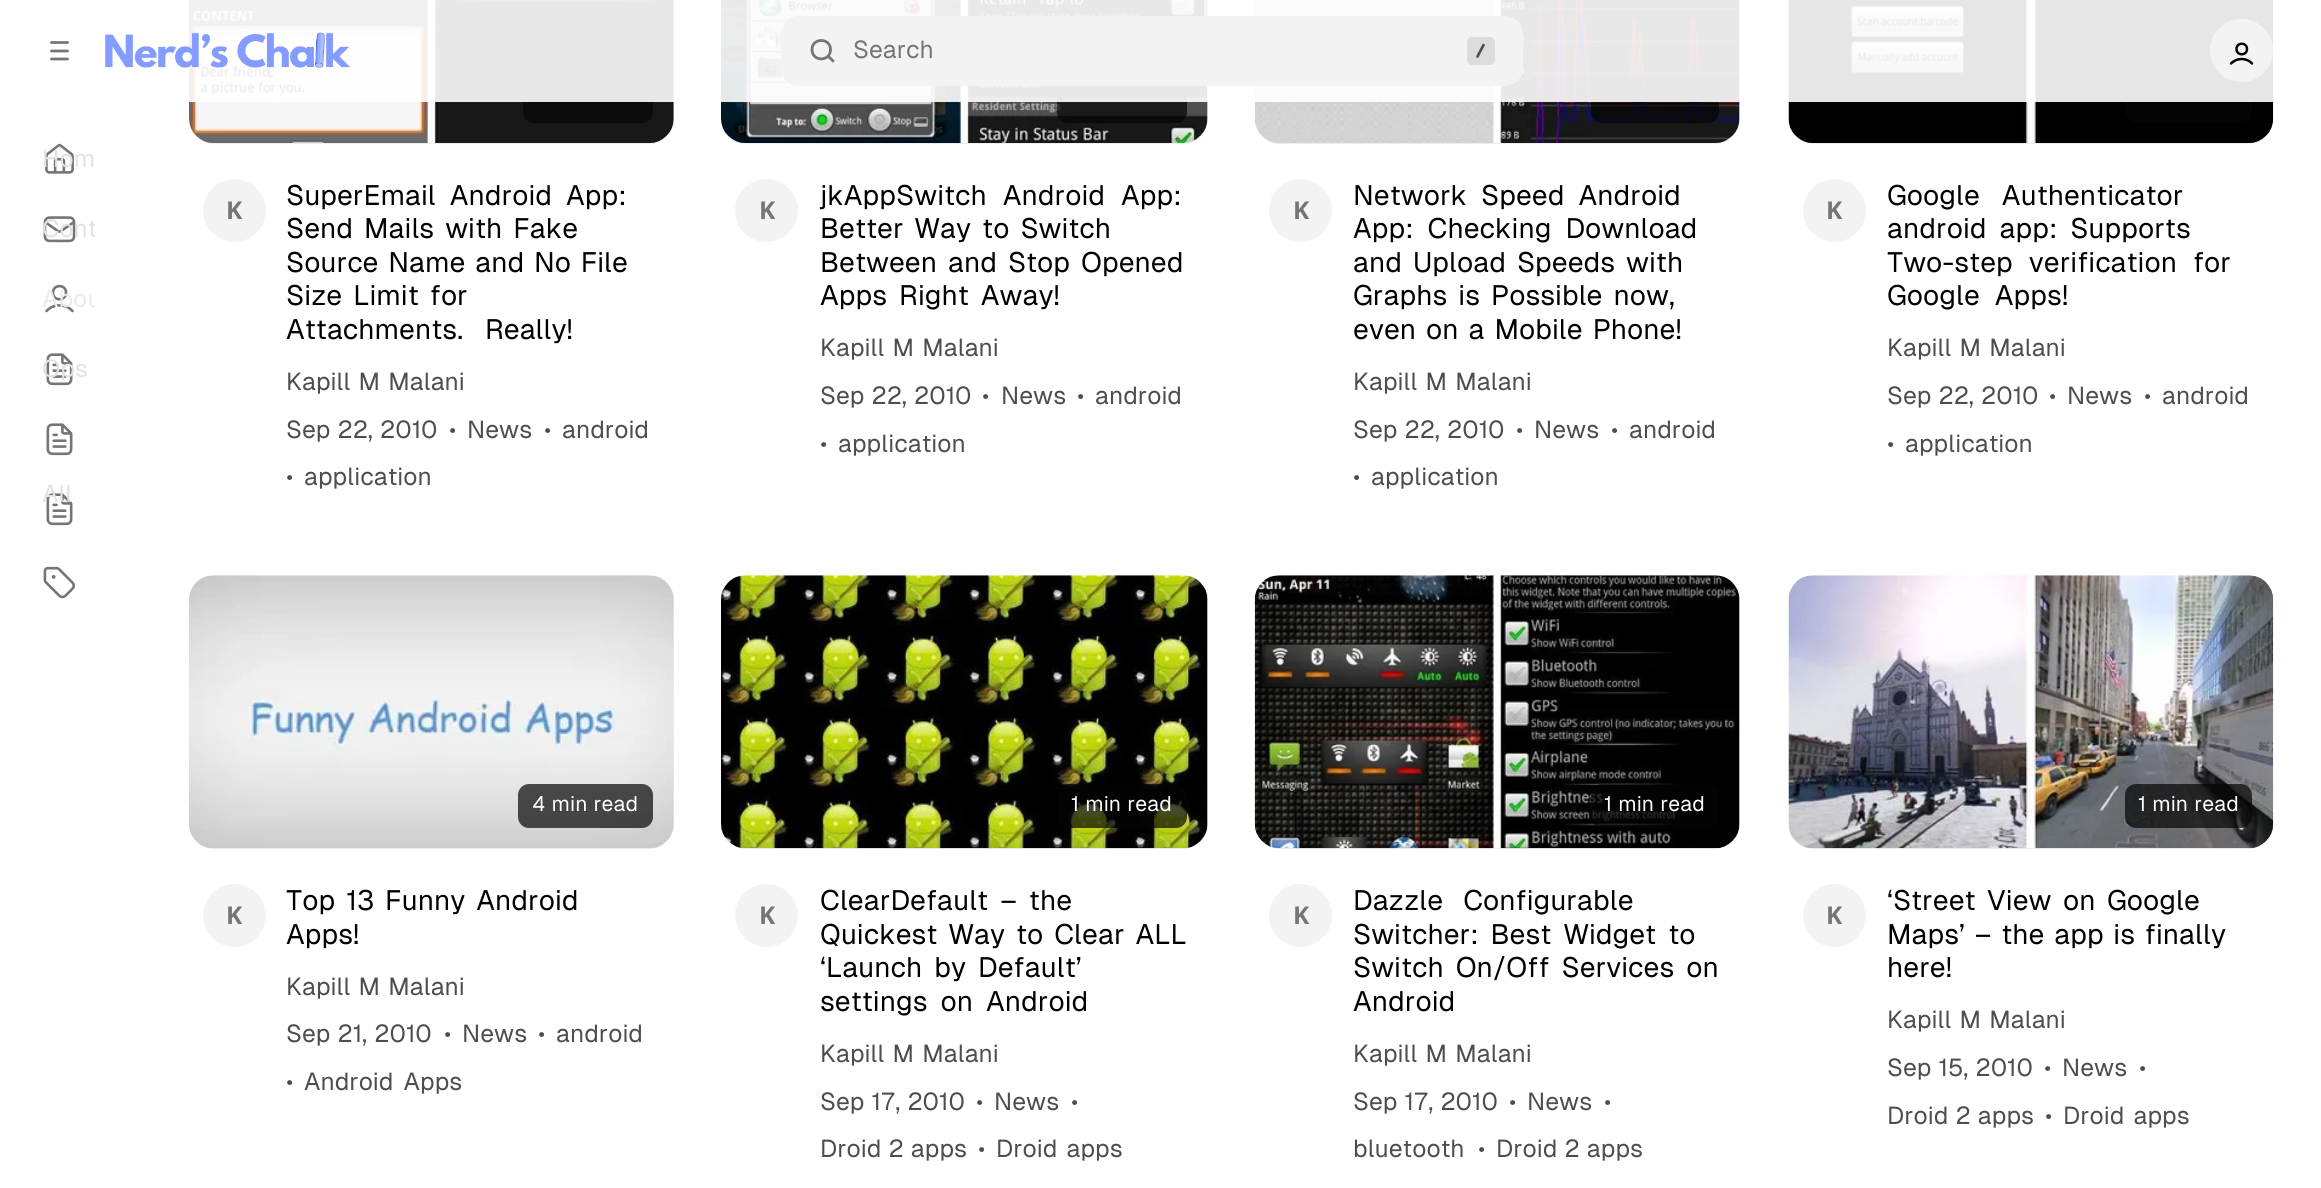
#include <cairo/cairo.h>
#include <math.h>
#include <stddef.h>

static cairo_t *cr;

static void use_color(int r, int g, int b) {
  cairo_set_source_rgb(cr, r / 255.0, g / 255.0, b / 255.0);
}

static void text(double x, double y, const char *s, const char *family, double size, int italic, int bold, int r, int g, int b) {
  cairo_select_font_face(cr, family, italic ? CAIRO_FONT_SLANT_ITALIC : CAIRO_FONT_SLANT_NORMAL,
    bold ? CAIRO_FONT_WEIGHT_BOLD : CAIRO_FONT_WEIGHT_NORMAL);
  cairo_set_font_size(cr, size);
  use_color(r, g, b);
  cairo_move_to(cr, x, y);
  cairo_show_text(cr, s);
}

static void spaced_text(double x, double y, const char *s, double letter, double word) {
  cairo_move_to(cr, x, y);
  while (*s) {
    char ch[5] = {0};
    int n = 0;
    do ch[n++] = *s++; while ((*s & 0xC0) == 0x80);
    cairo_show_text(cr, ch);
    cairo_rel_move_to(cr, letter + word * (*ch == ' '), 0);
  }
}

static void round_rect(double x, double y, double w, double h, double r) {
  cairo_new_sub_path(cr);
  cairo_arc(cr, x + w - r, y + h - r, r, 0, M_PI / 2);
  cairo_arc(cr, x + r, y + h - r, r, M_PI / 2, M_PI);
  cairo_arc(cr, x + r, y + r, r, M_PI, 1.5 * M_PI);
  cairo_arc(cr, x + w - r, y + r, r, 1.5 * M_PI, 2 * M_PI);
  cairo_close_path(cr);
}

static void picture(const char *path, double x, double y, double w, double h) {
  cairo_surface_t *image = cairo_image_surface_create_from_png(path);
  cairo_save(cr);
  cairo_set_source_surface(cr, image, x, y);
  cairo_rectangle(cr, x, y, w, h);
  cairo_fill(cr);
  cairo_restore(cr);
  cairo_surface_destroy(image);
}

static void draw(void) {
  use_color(255, 255, 255);
  cairo_paint(cr);
  use_color(237, 237, 237);
  round_rect(189, -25, 485, 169, 25);
  cairo_fill(cr);
  picture("img_06.png", 189, 0, 485, 143);
  use_color(11, 11, 11);
  round_rect(523, 77, 130, 46, 11);
  cairo_fill(cr);
  use_color(237, 237, 237);
  round_rect(721, -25, 487, 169, 25);
  cairo_fill(cr);
  picture("img_07.png", 721, 0, 487, 143);
  cairo_set_source_rgba(cr, 0.02, 0.02, 0.02, 0.7);
  round_rect(1057, 77, 130, 46, 11);
  cairo_fill(cr);
  use_color(237, 237, 237);
  round_rect(1255, -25, 485, 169, 25);
  cairo_fill(cr);
  picture("img_08.png", 1255, 0, 485, 143);
  cairo_set_source_rgba(cr, 0.02, 0.02, 0.02, 0.7);
  round_rect(1591, 77, 128, 46, 11);
  cairo_fill(cr);
  use_color(237, 237, 237);
  round_rect(1789, -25, 484, 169, 25);
  cairo_fill(cr);
  picture("img_09.png", 1788, 0, 486, 143);
  use_color(4, 4, 4);
  round_rect(2125, 77, 127, 46, 11);
  cairo_fill(cr);
  cairo_set_source_rgba(cr, 1, 1, 1, 0.9);
  cairo_rectangle(cr, 189, 0, 2085, 102);
  cairo_fill(cr);
  cairo_new_path(cr);
  cairo_move_to(cr, 51.5, 51);
  cairo_line_to(cr, 67.5, 51);
  cairo_move_to(cr, 51.5, 42.5);
  cairo_line_to(cr, 67.5, 42.5);
  cairo_move_to(cr, 51.5, 59);
  cairo_line_to(cr, 67.5, 59);
  use_color(117, 117, 117);
  cairo_set_line_width(cr, 2.8);
  cairo_set_line_cap(cr, CAIRO_LINE_CAP_ROUND);
  cairo_set_line_join(cr, CAIRO_LINE_JOIN_ROUND);
  cairo_stroke(cr);
  picture("img_01.png", 105, 32, 245, 36);
  use_color(243, 243, 243);
  round_rect(781, 16, 742, 70, 18);
  cairo_fill(cr);
  cairo_new_path(cr);
  cairo_move_to(cr, 833, 61);
  cairo_line_to(cr, 828, 56);
  cairo_move_to(cr, 830.5, 49.5);
  cairo_curve_to(cr, 830.5, 62, 812, 62, 812, 49.5);
  cairo_curve_to(cr, 812, 37.5, 830.5, 37.5, 830.5, 49.5);
  cairo_close_path(cr);
  use_color(117, 117, 117);
  cairo_stroke(cr);
  use_color(220, 220, 220);
  round_rect(1467, 37, 28, 28, 5);
  cairo_fill(cr);
  cairo_new_path(cr);
  cairo_move_to(cr, 1477.5, 56.5);
  cairo_line_to(cr, 1483.5, 45);
  use_color(77, 77, 77);
  cairo_set_line_width(cr, 2.6);
  cairo_stroke(cr);
  use_color(243, 243, 243);
  cairo_arc(cr, 2241.5, 50.5, 31.5, 0, 2 * M_PI);
  cairo_fill(cr);
  cairo_new_path(cr);
  cairo_move_to(cr, 2231, 63.5);
  cairo_curve_to(cr, 2237, 57.5, 2246.5, 57.5, 2252, 63.5);
  cairo_move_to(cr, 2247, 49);
  cairo_curve_to(cr, 2247, 56, 2236.5, 56, 2236.5, 49);
  cairo_curve_to(cr, 2236.5, 42, 2247, 42, 2247, 49);
  cairo_close_path(cr);
  use_color(0, 0, 0);
  cairo_set_line_width(cr, 2.5);
  cairo_stroke(cr);
  picture("img_02.png", 45, 143, 29, 31);
  picture("img_03.png", 43, 216, 33, 27);
  cairo_new_path(cr);
  cairo_move_to(cr, 46.5, 311);
  cairo_curve_to(cr, 53.5, 303.5, 65.5, 303.5, 72.5, 311);
  cairo_move_to(cr, 66, 292.5);
  cairo_curve_to(cr, 66, 301.5, 53, 301.5, 53, 292.5);
  cairo_curve_to(cr, 53, 284, 66, 284, 66, 292.5);
  cairo_close_path(cr);
  use_color(117, 117, 117);
  cairo_set_line_width(cr, 2.6);
  cairo_stroke(cr);
  picture("img_04.png", 46, 353, 27, 33);
  picture("img_04.png", 46, 423, 27, 33);
  picture("img_04.png", 46, 493, 27, 33);
  picture("img_05.png", 43, 566, 32, 33);
  use_color(243, 243, 243);
  cairo_arc(cr, 234.5, 210.5, 31.5, 0, 2 * M_PI);
  cairo_fill(cr);
  cairo_arc(cr, 766.5, 210.5, 31.5, 0, 2 * M_PI);
  cairo_fill(cr);
  cairo_arc(cr, 1300.5, 210.5, 31.5, 0, 2 * M_PI);
  cairo_fill(cr);
  cairo_arc(cr, 1834.5, 210.5, 31.5, 0, 2 * M_PI);
  cairo_fill(cr);
  use_color(237, 237, 237);
  round_rect(189, 576, 485, 273, 25);
  cairo_fill(cr);
  picture("img_10.png", 189, 575, 485, 273);
  cairo_set_source_rgba(cr, 0.02, 0.02, 0.02, 0.7);
  round_rect(518, 784, 135, 44, 11);
  cairo_fill(cr);
  use_color(243, 243, 243);
  cairo_arc(cr, 234.5, 915.5, 31.5, 0, 2 * M_PI);
  cairo_fill(cr);
  use_color(237, 237, 237);
  round_rect(721, 576, 487, 273, 25);
  cairo_fill(cr);
  picture("img_11.png", 721, 575, 487, 274);
  cairo_set_source_rgba(cr, 0.02, 0.02, 0.02, 0.7);
  round_rect(1057, 784, 130, 44, 11);
  cairo_fill(cr);
  use_color(243, 243, 243);
  cairo_arc(cr, 766.5, 915.5, 31.5, 0, 2 * M_PI);
  cairo_fill(cr);
  use_color(237, 237, 237);
  round_rect(1255, 576, 485, 273, 25);
  cairo_fill(cr);
  picture("img_12.png", 1254, 575, 486, 274);
  cairo_set_source_rgba(cr, 0.02, 0.02, 0.02, 0.7);
  round_rect(1591, 784, 128, 44, 11);
  cairo_fill(cr);
  use_color(243, 243, 243);
  cairo_arc(cr, 1300.5, 915.5, 31.5, 0, 2 * M_PI);
  cairo_fill(cr);
  use_color(237, 237, 237);
  round_rect(1789, 576, 484, 273, 25);
  cairo_fill(cr);
  picture("img_13.png", 1788, 575, 486, 274);
  cairo_set_source_rgba(cr, 0.02, 0.02, 0.02, 0.7);
  round_rect(2125, 784, 127, 44, 11);
  cairo_fill(cr);
  use_color(243, 243, 243);
  cairo_arc(cr, 1834.5, 915.5, 31.5, 0, 2 * M_PI);
  cairo_fill(cr);
  text(853, 58, "Search", "Geist", 24.5, 0, 0, 117, 117, 117);
  text(42, 167, "Hom", "Geist", 24.5, 0, 0, 226, 226, 226);
  cairo_save(cr);
  round_rect(25, 196, 70, 67, 14);
  cairo_clip(cr);
  text(42, 237, "Cont", "Geist", 24.5, 0, 0, 226, 226, 226);
  cairo_restore(cr);
  cairo_save(cr);
  round_rect(25, 266, 70, 67, 14);
  cairo_clip(cr);
  text(42, 307, "Abou", "Geist", 24.5, 0, 0, 234, 234, 234);
  cairo_restore(cr);
  spaced_text(42, 377, "Ops", 0, 1);
  text(42, 502, "All", "Geist", 24.5, 0, 0, 226, 226, 226);
  cairo_set_font_size(cr, 28);
  use_color(0, 0, 0);
  spaced_text(286, 205, "SuperEmail Android App:", 0, 7);
  spaced_text(286, 238, "Send Mails with Fake", 0, 4);
  spaced_text(286, 272, "Source Name and No File", 0, 2.75);
  spaced_text(286, 305, "Size Limit for", 0, 4);
  spaced_text(286, 339, "Attachments. Really!", 0, 15);
  text(226, 219, "K", "Noto Sans", 24.5, 0, 1, 117, 117, 117);
  cairo_select_font_face(cr, "Geist", CAIRO_FONT_SLANT_NORMAL, CAIRO_FONT_WEIGHT_NORMAL);
  use_color(77, 77, 77);
  spaced_text(286, 390, "Kapill M Malani", 0, 2);
  spaced_text(286, 438, "Sep 22, 2010", 0, 1);
  text(449, 438, "•", "Geist", 24.5, 0, 0, 77, 77, 77);
  text(467, 438, "News", "Geist", 24.5, 0, 0, 77, 77, 77);
  text(544, 438, "•", "Geist", 24.5, 0, 0, 77, 77, 77);
  text(562, 438, "android", "Geist", 24.5, 0, 0, 77, 77, 77);
  text(286, 485, "•", "Geist", 24.5, 0, 0, 77, 77, 77);
  text(304, 485, "application", "Geist", 24.5, 0, 0, 77, 77, 77);
  cairo_set_font_size(cr, 28);
  use_color(0, 0, 0);
  spaced_text(820, 205, "jkAppSwitch Android App:", 0, 9);
  spaced_text(820, 238, "Better Way to Switch", 0, 4);
  spaced_text(820, 272, "Between and Stop Opened", 0, 4);
  spaced_text(820, 305, "Apps Right Away!", 0, 5);
  text(759, 219, "K", "Noto Sans", 24.5, 0, 1, 117, 117, 117);
  cairo_select_font_face(cr, "Geist", CAIRO_FONT_SLANT_NORMAL, CAIRO_FONT_WEIGHT_NORMAL);
  use_color(77, 77, 77);
  spaced_text(820, 356, "Kapill M Malani", 0, 2);
  spaced_text(820, 404, "Sep 22, 2010", 0, 1);
  text(982, 404, "•", "Geist", 24.5, 0, 0, 77, 77, 77);
  text(1001, 404, "News", "Geist", 24.5, 0, 0, 77, 77, 77);
  text(1077, 404, "•", "Geist", 24.5, 0, 0, 77, 77, 77);
  text(1095, 404, "android", "Geist", 24.5, 0, 0, 77, 77, 77);
  text(820, 452, "•", "Geist", 24.5, 0, 0, 77, 77, 77);
  text(838, 452, "application", "Geist", 24.5, 0, 0, 77, 77, 77);
  cairo_set_font_size(cr, 28);
  use_color(0, 0, 0);
  spaced_text(1353, 205, "Network Speed Android", 0, 7);
  spaced_text(1353, 238, "App: Checking Download", 0, 7);
  spaced_text(1353, 272, "and Upload Speeds with", 0, 4);
  spaced_text(1353, 305, "Graphs is Possible now,", 0, 4);
  spaced_text(1353, 339, "even on a Mobile Phone!", 0, 3);
  text(1293, 219, "K", "Noto Sans", 24.5, 0, 1, 117, 117, 117);
  cairo_select_font_face(cr, "Geist", CAIRO_FONT_SLANT_NORMAL, CAIRO_FONT_WEIGHT_NORMAL);
  use_color(77, 77, 77);
  spaced_text(1353, 390, "Kapill M Malani", 0, 2);
  spaced_text(1353, 438, "Sep 22, 2010", 0, 1);
  text(1516, 438, "•", "Geist", 24.5, 0, 0, 77, 77, 77);
  text(1534, 438, "News", "Geist", 24.5, 0, 0, 77, 77, 77);
  text(1611, 438, "•", "Geist", 24.5, 0, 0, 77, 77, 77);
  text(1629, 438, "android", "Geist", 24.5, 0, 0, 77, 77, 77);
  text(1353, 485, "•", "Geist", 24.5, 0, 0, 77, 77, 77);
  text(1371, 485, "application", "Geist", 24.5, 0, 0, 77, 77, 77);
  cairo_set_font_size(cr, 28);
  use_color(0, 0, 0);
  spaced_text(1887, 205, "Google Authenticator", 0, 15);
  spaced_text(1887, 238, "android app: Supports", 0, 6);
  spaced_text(1887, 272, "Two-step verification for", 0, 9);
  spaced_text(1887, 305, "Google Apps!", 0, 8);
  text(1826, 219, "K", "Noto Sans", 24.5, 0, 1, 117, 117, 117);
  cairo_select_font_face(cr, "Geist", CAIRO_FONT_SLANT_NORMAL, CAIRO_FONT_WEIGHT_NORMAL);
  use_color(77, 77, 77);
  spaced_text(1887, 356, "Kapill M Malani", 0, 2);
  spaced_text(1887, 404, "Sep 22, 2010", 0, 1);
  text(2049, 404, "•", "Geist", 24.5, 0, 0, 77, 77, 77);
  text(2067, 404, "News", "Geist", 24.5, 0, 0, 77, 77, 77);
  text(2144, 404, "•", "Geist", 24.5, 0, 0, 77, 77, 77);
  text(2162, 404, "android", "Geist", 24.5, 0, 0, 77, 77, 77);
  text(1887, 452, "•", "Geist", 24.5, 0, 0, 77, 77, 77);
  text(1905, 452, "application", "Geist", 24.5, 0, 0, 77, 77, 77);
  cairo_set_font_size(cr, 21);
  use_color(255, 255, 255);
  spaced_text(532, 811, "4 min read", 0, 1);
  cairo_set_font_size(cr, 28);
  use_color(0, 0, 0);
  spaced_text(286, 910, "Top 13 Funny Android", 0, 4);
  text(286, 944, "Apps!", "Geist", 28, 0, 0, 0, 0, 0);
  text(226, 924, "K", "Noto Sans", 24.5, 0, 1, 117, 117, 117);
  cairo_select_font_face(cr, "Geist", CAIRO_FONT_SLANT_NORMAL, CAIRO_FONT_WEIGHT_NORMAL);
  use_color(77, 77, 77);
  spaced_text(286, 995, "Kapill M Malani", 0, 2);
  spaced_text(286, 1042, "Sep 21, 2010", 0, 1);
  text(444, 1042, "•", "Geist", 24.5, 0, 0, 77, 77, 77);
  text(462, 1042, "News", "Geist", 24.5, 0, 0, 77, 77, 77);
  text(538, 1042, "•", "Geist", 24.5, 0, 0, 77, 77, 77);
  text(556, 1042, "android", "Geist", 24.5, 0, 0, 77, 77, 77);
  text(286, 1090, "•", "Geist", 24.5, 0, 0, 77, 77, 77);
  spaced_text(304, 1090, "Android Apps", 0, 4);
  cairo_set_font_size(cr, 21);
  use_color(255, 255, 255);
  spaced_text(1071, 811, "1 min read", 0, 1);
  cairo_set_font_size(cr, 28);
  use_color(0, 0, 0);
  spaced_text(820, 910, "ClearDefault – the", 0, 5);
  spaced_text(820, 944, "Quickest Way to Clear ALL", 0, 4);
  spaced_text(820, 977, "‘Launch by Default’", 0, 5);
  spaced_text(820, 1011, "settings on Android", 0, 6);
  text(759, 924, "K", "Noto Sans", 24.5, 0, 1, 117, 117, 117);
  cairo_select_font_face(cr, "Geist", CAIRO_FONT_SLANT_NORMAL, CAIRO_FONT_WEIGHT_NORMAL);
  use_color(77, 77, 77);
  spaced_text(820, 1062, "Kapill M Malani", 0, 2);
  spaced_text(820, 1110, "Sep 17, 2010", 0, 1);
  text(976, 1110, "•", "Geist", 24.5, 0, 0, 77, 77, 77);
  text(994, 1110, "News", "Geist", 24.5, 0, 0, 77, 77, 77);
  text(1071, 1110, "•", "Geist", 24.5, 0, 0, 77, 77, 77);
  spaced_text(820, 1157, "Droid 2 apps", 0, 1);
  text(978, 1157, "•", "Geist", 24.5, 0, 0, 77, 77, 77);
  spaced_text(996, 1157, "Droid apps", 0, 3);
  cairo_set_font_size(cr, 21);
  use_color(255, 255, 255);
  spaced_text(1604, 811, "1 min read", 0, 1);
  cairo_set_font_size(cr, 28);
  use_color(0, 0, 0);
  spaced_text(1353, 910, "Dazzle Configurable", 0, 13);
  spaced_text(1353, 944, "Switcher: Best Widget to", 0, 5);
  spaced_text(1353, 977, "Switch On/Off Services on", 0, 5);
  text(1353, 1011, "Android", "Geist", 28, 0, 0, 0, 0, 0);
  text(1293, 924, "K", "Noto Sans", 24.5, 0, 1, 117, 117, 117);
  cairo_select_font_face(cr, "Geist", CAIRO_FONT_SLANT_NORMAL, CAIRO_FONT_WEIGHT_NORMAL);
  use_color(77, 77, 77);
  spaced_text(1353, 1062, "Kapill M Malani", 0, 2);
  spaced_text(1353, 1110, "Sep 17, 2010", 0, 1);
  text(1509, 1110, "•", "Geist", 24.5, 0, 0, 77, 77, 77);
  text(1527, 1110, "News", "Geist", 24.5, 0, 0, 77, 77, 77);
  text(1604, 1110, "•", "Geist", 24.5, 0, 0, 77, 77, 77);
  text(1353, 1157, "bluetooth", "Geist", 24.5, 0, 0, 77, 77, 77);
  text(1478, 1157, "•", "Geist", 24.5, 0, 0, 77, 77, 77);
  spaced_text(1496, 1157, "Droid 2 apps", 0, 1);
  cairo_set_font_size(cr, 21);
  use_color(255, 255, 255);
  spaced_text(2138, 811, "1 min read", 0, 1);
  cairo_set_font_size(cr, 28);
  use_color(0, 0, 0);
  spaced_text(1887, 910, "‘Street View on Google", 0, 4.5);
  spaced_text(1887, 944, "Maps’ – the app is finally", 0, 2.75);
  text(1887, 977, "here!", "Geist", 28, 0, 0, 0, 0, 0);
  text(1826, 924, "K", "Noto Sans", 24.5, 0, 1, 117, 117, 117);
  cairo_select_font_face(cr, "Geist", CAIRO_FONT_SLANT_NORMAL, CAIRO_FONT_WEIGHT_NORMAL);
  use_color(77, 77, 77);
  spaced_text(1887, 1028, "Kapill M Malani", 0, 2);
  spaced_text(1887, 1076, "Sep 15, 2010", 0, 1);
  text(2044, 1076, "•", "Geist", 24.5, 0, 0, 77, 77, 77);
  text(2062, 1076, "News", "Geist", 24.5, 0, 0, 77, 77, 77);
  text(2139, 1076, "•", "Geist", 24.5, 0, 0, 77, 77, 77);
  spaced_text(1887, 1124, "Droid 2 apps", 0, 1);
  text(2045, 1124, "•", "Geist", 24.5, 0, 0, 77, 77, 77);
  spaced_text(2063, 1124, "Droid apps", 0, 3);
}

int main(void) {
  cairo_surface_t *surface = cairo_image_surface_create(CAIRO_FORMAT_RGB24, 2321, 1188);
  cr = cairo_create(surface);
  cairo_font_options_t *options = cairo_font_options_create();
  cairo_font_options_set_hint_metrics(options, CAIRO_HINT_METRICS_OFF);
  cairo_font_options_set_hint_style(options, CAIRO_HINT_STYLE_NONE);
  cairo_set_font_options(cr, options);
  cairo_set_miter_limit(cr, 4);
  draw();
  cairo_surface_write_to_png(surface, "out.png");
  cairo_font_options_destroy(options);
  cairo_destroy(cr);
  cairo_surface_destroy(surface);
  return 0;
}
